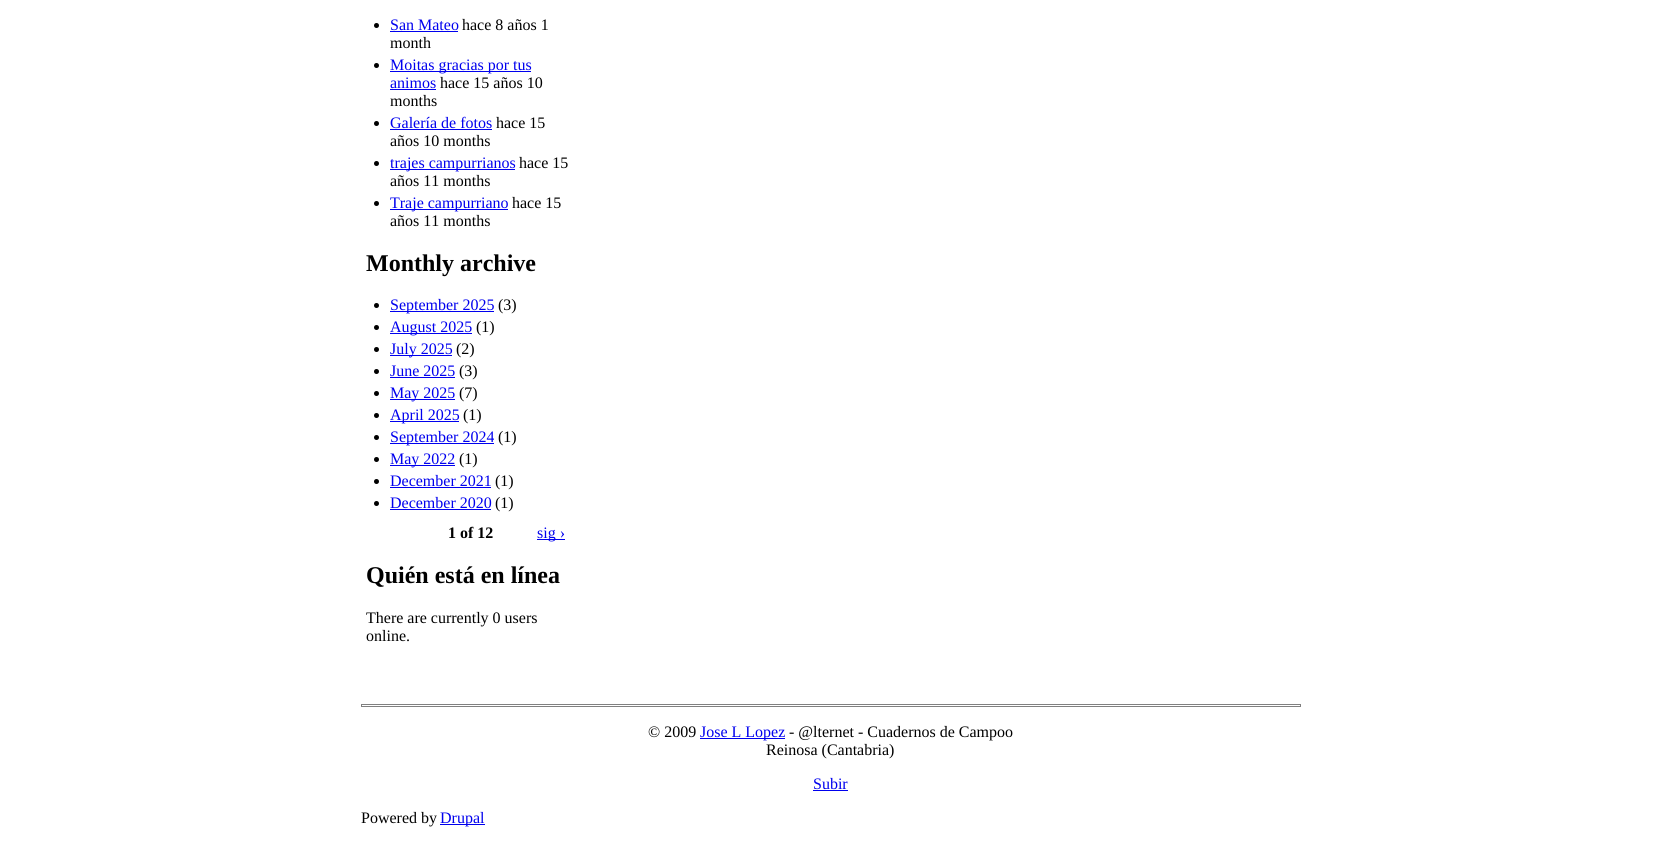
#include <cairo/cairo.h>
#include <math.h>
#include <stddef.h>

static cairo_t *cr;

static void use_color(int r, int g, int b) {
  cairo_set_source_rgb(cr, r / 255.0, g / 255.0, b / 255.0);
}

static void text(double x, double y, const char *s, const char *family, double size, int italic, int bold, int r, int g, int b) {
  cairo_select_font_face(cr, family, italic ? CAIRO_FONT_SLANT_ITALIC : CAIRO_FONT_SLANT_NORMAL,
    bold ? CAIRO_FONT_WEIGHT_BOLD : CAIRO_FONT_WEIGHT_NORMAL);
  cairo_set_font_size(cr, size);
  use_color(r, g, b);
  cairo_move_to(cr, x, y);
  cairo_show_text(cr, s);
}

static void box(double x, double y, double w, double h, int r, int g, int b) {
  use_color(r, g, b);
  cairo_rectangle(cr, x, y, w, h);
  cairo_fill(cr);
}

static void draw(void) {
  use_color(255, 255, 255);
  cairo_paint(cr);
  use_color(0, 0, 0);
  cairo_arc(cr, 376.5, 25.5, 2.5, 0, 2 * M_PI);
  cairo_fill(cr);
  box(390, 31, 68, 1, 0, 0, 238);
  use_color(0, 0, 0);
  cairo_arc(cr, 376.5, 65.5, 2.5, 0, 2 * M_PI);
  cairo_fill(cr);
  box(390, 71, 141, 1, 0, 0, 238);
  box(390, 89, 46, 1, 0, 0, 238);
  use_color(0, 0, 0);
  cairo_arc(cr, 376.5, 123.5, 2.5, 0, 2 * M_PI);
  cairo_fill(cr);
  box(390, 129, 102, 1, 0, 0, 238);
  use_color(0, 0, 0);
  cairo_arc(cr, 376.5, 163.5, 2.5, 0, 2 * M_PI);
  cairo_fill(cr);
  box(390, 169, 125, 1, 0, 0, 238);
  use_color(0, 0, 0);
  cairo_arc(cr, 376.5, 203.5, 2.5, 0, 2 * M_PI);
  cairo_fill(cr);
  box(390, 209, 118, 1, 0, 0, 238);
  use_color(0, 0, 0);
  cairo_arc(cr, 376.5, 305.5, 2.5, 0, 2 * M_PI);
  cairo_fill(cr);
  box(390, 311, 104, 1, 0, 0, 238);
  use_color(0, 0, 0);
  cairo_arc(cr, 376.5, 327.5, 2.5, 0, 2 * M_PI);
  cairo_fill(cr);
  box(390, 333, 82, 1, 0, 0, 238);
  use_color(0, 0, 0);
  cairo_arc(cr, 376.5, 349.5, 2.5, 0, 2 * M_PI);
  cairo_fill(cr);
  box(390, 355, 62, 1, 0, 0, 238);
  use_color(0, 0, 0);
  cairo_arc(cr, 376.5, 371.5, 2.5, 0, 2 * M_PI);
  cairo_fill(cr);
  box(390, 377, 65, 1, 0, 0, 238);
  use_color(0, 0, 0);
  cairo_arc(cr, 376.5, 393.5, 2.5, 0, 2 * M_PI);
  cairo_fill(cr);
  box(390, 399, 65, 1, 0, 0, 238);
  use_color(0, 0, 0);
  cairo_arc(cr, 376.5, 415.5, 2.5, 0, 2 * M_PI);
  cairo_fill(cr);
  box(390, 421, 69, 1, 0, 0, 238);
  use_color(0, 0, 0);
  cairo_arc(cr, 376.5, 437.5, 2.5, 0, 2 * M_PI);
  cairo_fill(cr);
  box(390, 443, 104, 1, 0, 0, 238);
  use_color(0, 0, 0);
  cairo_arc(cr, 376.5, 459.5, 2.5, 0, 2 * M_PI);
  cairo_fill(cr);
  box(390, 465, 65, 1, 0, 0, 238);
  use_color(0, 0, 0);
  cairo_arc(cr, 376.5, 481.5, 2.5, 0, 2 * M_PI);
  cairo_fill(cr);
  box(390, 487, 101, 1, 0, 0, 238);
  use_color(0, 0, 0);
  cairo_arc(cr, 376.5, 503.5, 2.5, 0, 2 * M_PI);
  cairo_fill(cr);
  box(390, 509, 101, 1, 0, 0, 238);
  box(537, 539, 28, 1, 0, 0, 238);
  cairo_rectangle(cr, 361.5, 704.5, 939, 2);
  use_color(128, 128, 128);
  cairo_set_line_width(cr, 1);
  cairo_stroke(cr);
  box(700, 738, 85, 1, 0, 0, 238);
  box(813, 790, 35, 1, 0, 0, 238);
  box(440, 824, 45, 1, 0, 0, 238);
  text(390, 30, "San Mateo", "Liberation Serif", 16, 0, 0, 0, 0, 238);
  text(462, 30, "hace 8 años 1", "Liberation Serif", 16, 0, 0, 0, 0, 0);
  text(390, 48, "month", "Liberation Serif", 16, 0, 0, 0, 0, 0);
  text(390, 70, "Moitas gracias por tus", "Liberation Serif", 16, 0, 0, 0, 0, 238);
  text(390, 88, "animos", "Liberation Serif", 16, 0, 0, 0, 0, 238);
  text(440, 88, "hace 15 años 10", "Liberation Serif", 16, 0, 0, 0, 0, 0);
  text(390, 106, "months", "Liberation Serif", 16, 0, 0, 0, 0, 0);
  text(390, 128, "Galería de fotos", "Liberation Serif", 16, 0, 0, 0, 0, 238);
  text(496, 128, "hace 15", "Liberation Serif", 16, 0, 0, 0, 0, 0);
  text(390, 146, "años 10 months", "Liberation Serif", 16, 0, 0, 0, 0, 0);
  text(390, 168, "trajes campurrianos", "Liberation Serif", 16, 0, 0, 0, 0, 238);
  text(519, 168, "hace 15", "Liberation Serif", 16, 0, 0, 0, 0, 0);
  text(390, 186, "años 11 months", "Liberation Serif", 16, 0, 0, 0, 0, 0);
  text(390, 208, "Traje campurriano", "Liberation Serif", 16, 0, 0, 0, 0, 238);
  text(512, 208, "hace 15", "Liberation Serif", 16, 0, 0, 0, 0, 0);
  text(390, 226, "años 11 months", "Liberation Serif", 16, 0, 0, 0, 0, 0);
  text(366, 271, "Monthly archive", "Liberation Serif", 24, 0, 1, 0, 0, 0);
  text(390, 310, "September 2025", "Liberation Serif", 16, 0, 0, 0, 0, 238);
  text(498, 310, "(3)", "Liberation Serif", 16, 0, 0, 0, 0, 0);
  text(390, 332, "August 2025", "Liberation Serif", 16, 0, 0, 0, 0, 238);
  text(476, 332, "(1)", "Liberation Serif", 16, 0, 0, 0, 0, 0);
  text(390, 354, "July 2025", "Liberation Serif", 16, 0, 0, 0, 0, 238);
  text(456, 354, "(2)", "Liberation Serif", 16, 0, 0, 0, 0, 0);
  text(390, 376, "June 2025", "Liberation Serif", 16, 0, 0, 0, 0, 238);
  text(459, 376, "(3)", "Liberation Serif", 16, 0, 0, 0, 0, 0);
  text(390, 398, "May 2025", "Liberation Serif", 16, 0, 0, 0, 0, 238);
  text(459, 398, "(7)", "Liberation Serif", 16, 0, 0, 0, 0, 0);
  text(390, 420, "April 2025", "Liberation Serif", 16, 0, 0, 0, 0, 238);
  text(463, 420, "(1)", "Liberation Serif", 16, 0, 0, 0, 0, 0);
  text(390, 442, "September 2024", "Liberation Serif", 16, 0, 0, 0, 0, 238);
  text(498, 442, "(1)", "Liberation Serif", 16, 0, 0, 0, 0, 0);
  text(390, 464, "May 2022", "Liberation Serif", 16, 0, 0, 0, 0, 238);
  text(459, 464, "(1)", "Liberation Serif", 16, 0, 0, 0, 0, 0);
  text(390, 486, "December 2021", "Liberation Serif", 16, 0, 0, 0, 0, 238);
  text(495, 486, "(1)", "Liberation Serif", 16, 0, 0, 0, 0, 0);
  text(390, 508, "December 2020", "Liberation Serif", 16, 0, 0, 0, 0, 238);
  text(495, 508, "(1)", "Liberation Serif", 16, 0, 0, 0, 0, 0);
  text(448, 538, "1 of 12", "Liberation Serif", 16, 0, 1, 0, 0, 0);
  text(537, 538, "sig ›", "Liberation Serif", 16, 0, 0, 0, 0, 238);
  text(366, 583, "Quién está en línea", "Liberation Serif", 24, 0, 1, 0, 0, 0);
  text(366, 623, "There are currently 0 users", "Liberation Serif", 16, 0, 0, 0, 0, 0);
  text(366, 641, "online.", "Liberation Serif", 16, 0, 0, 0, 0, 0);
  text(648, 737, "© 2009", "Liberation Serif", 16, 0, 0, 0, 0, 0);
  text(700, 737, "Jose L Lopez", "Liberation Serif", 16, 0, 0, 0, 0, 238);
  text(789, 737, "- @lternet - Cuadernos de Campoo", "Liberation Serif", 16, 0, 0, 0, 0, 0);
  text(766, 755, "Reinosa (Cantabria)", "Liberation Serif", 16, 0, 0, 0, 0, 0);
  text(813, 789, "Subir", "Liberation Serif", 16, 0, 0, 0, 0, 238);
  text(361, 823, "Powered by", "Liberation Serif", 16, 0, 0, 0, 0, 0);
  text(440, 823, "Drupal", "Liberation Serif", 16, 0, 0, 0, 0, 238);
}

int main(void) {
  cairo_surface_t *surface = cairo_image_surface_create(CAIRO_FORMAT_RGB24, 1661, 857);
  cr = cairo_create(surface);
  cairo_font_options_t *options = cairo_font_options_create();
  cairo_font_options_set_hint_metrics(options, CAIRO_HINT_METRICS_OFF);
  cairo_font_options_set_hint_style(options, CAIRO_HINT_STYLE_NONE);
  cairo_set_font_options(cr, options);
  cairo_set_miter_limit(cr, 4);
  draw();
  cairo_surface_write_to_png(surface, "out.png");
  cairo_font_options_destroy(options);
  cairo_destroy(cr);
  cairo_surface_destroy(surface);
  return 0;
}
